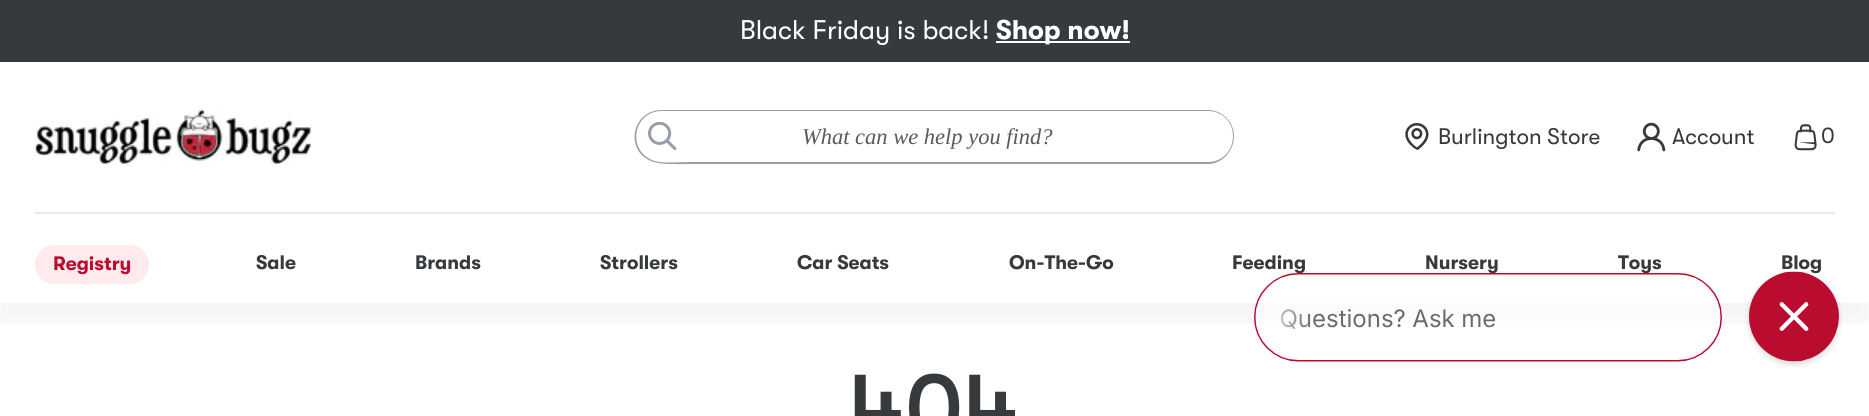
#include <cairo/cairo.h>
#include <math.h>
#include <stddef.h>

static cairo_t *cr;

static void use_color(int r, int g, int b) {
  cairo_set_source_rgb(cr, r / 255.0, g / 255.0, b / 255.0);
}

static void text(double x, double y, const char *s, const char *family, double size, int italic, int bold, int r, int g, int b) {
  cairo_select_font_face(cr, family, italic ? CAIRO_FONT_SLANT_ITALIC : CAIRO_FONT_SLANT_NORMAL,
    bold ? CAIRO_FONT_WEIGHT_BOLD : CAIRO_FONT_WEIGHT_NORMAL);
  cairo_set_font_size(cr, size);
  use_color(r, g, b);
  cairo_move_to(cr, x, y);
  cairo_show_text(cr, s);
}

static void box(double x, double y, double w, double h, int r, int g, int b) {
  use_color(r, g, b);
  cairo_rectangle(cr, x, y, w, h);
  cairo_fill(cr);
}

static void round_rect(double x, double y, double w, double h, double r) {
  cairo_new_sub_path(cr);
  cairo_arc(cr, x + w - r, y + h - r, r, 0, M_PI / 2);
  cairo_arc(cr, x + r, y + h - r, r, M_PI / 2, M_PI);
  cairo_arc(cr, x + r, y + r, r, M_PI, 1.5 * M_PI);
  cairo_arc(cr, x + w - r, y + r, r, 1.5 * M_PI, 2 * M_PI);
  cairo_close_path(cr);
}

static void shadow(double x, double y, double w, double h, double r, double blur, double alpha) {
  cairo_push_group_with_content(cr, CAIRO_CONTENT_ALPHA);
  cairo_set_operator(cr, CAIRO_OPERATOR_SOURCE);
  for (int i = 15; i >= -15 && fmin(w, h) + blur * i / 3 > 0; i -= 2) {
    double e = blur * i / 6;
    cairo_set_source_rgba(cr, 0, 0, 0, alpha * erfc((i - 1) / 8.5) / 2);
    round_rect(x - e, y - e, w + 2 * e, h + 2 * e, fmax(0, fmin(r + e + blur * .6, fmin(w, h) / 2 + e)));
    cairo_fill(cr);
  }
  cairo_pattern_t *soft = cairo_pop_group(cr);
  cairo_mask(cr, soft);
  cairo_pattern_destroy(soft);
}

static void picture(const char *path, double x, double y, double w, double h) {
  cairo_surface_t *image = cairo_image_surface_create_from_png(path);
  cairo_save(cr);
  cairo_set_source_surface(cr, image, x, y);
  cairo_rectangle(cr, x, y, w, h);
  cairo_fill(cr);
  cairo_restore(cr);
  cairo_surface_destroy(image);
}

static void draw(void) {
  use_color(255, 255, 255);
  cairo_paint(cr);
  box(0, 0, 1869, 62, 55, 58, 60);
  box(996, 41, 134, 2, 255, 255, 255);
  cairo_save(cr);
  cairo_rectangle(cr, 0, 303, 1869, 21);
  cairo_clip(cr);
  use_color(0, 0, 0);
  shadow(0, 80, 1869, 241, 0, 13.5, 0.05);
  cairo_restore(cr);
  picture("img_01.png", 34, 109, 277, 55);
  use_color(151, 157, 171);
  cairo_set_fill_rule(cr, CAIRO_FILL_RULE_EVEN_ODD);
  cairo_new_path(cr);
  cairo_move_to(cr, 662, 110);
  cairo_line_to(cr, 690, 110);
  cairo_line_to(cr, 690, 164);
  cairo_curve_to(cr, 680, 164, 660, 165, 651, 161);
  cairo_curve_to(cr, 624, 150, 632, 110, 662, 110);
  cairo_close_path(cr);
  cairo_move_to(cr, 662, 111);
  cairo_line_to(cr, 690, 111);
  cairo_line_to(cr, 690, 162);
  cairo_curve_to(cr, 680, 162, 660, 164, 652, 160);
  cairo_curve_to(cr, 626, 149, 634, 111, 662, 111);
  cairo_close_path(cr);
  cairo_fill(cr);
  picture("img_02.png", 648, 122, 29, 29);
  cairo_new_path(cr);
  cairo_move_to(cr, 690, 110);
  cairo_line_to(cr, 1208, 110);
  cairo_curve_to(cr, 1222, 110, 1234, 122, 1234, 136);
  cairo_curve_to(cr, 1234, 151, 1222, 164, 1208, 164);
  cairo_line_to(cr, 690, 164);
  cairo_close_path(cr);
  cairo_move_to(cr, 690, 111);
  cairo_line_to(cr, 1208, 111);
  cairo_curve_to(cr, 1222, 111, 1233, 122, 1233, 136);
  cairo_curve_to(cr, 1233, 151, 1222, 162, 1208, 162);
  cairo_line_to(cr, 690, 162);
  cairo_close_path(cr);
  cairo_fill(cr);
  picture("img_03.png", 1405, 122, 24, 28);
  picture("img_04.png", 1637, 122, 29, 30);
  picture("img_05.png", 1794, 124, 23, 27);
  box(35, 212, 1800, 2, 231, 232, 234);
  use_color(255, 234, 237);
  round_rect(35, 245, 114, 39, 19.5);
  cairo_fill(cr);
  text(740, 39, "Black Friday is back!", "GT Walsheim", 27, 0, 0, 255, 255, 255);
  text(996, 39, "Shop now!", "GT Walsheim", 27, 0, 1, 255, 255, 255);
  text(802, 144, "What can we help you find?", "Liberation Serif", 22.5, 1, 0, 86, 91, 94);
  text(1438, 144, "Burlington Store", "GT Walsheim", 22.5, 0, 0, 55, 58, 60);
  text(1672, 144, "Account", "GT Walsheim", 22.5, 0, 0, 55, 58, 60);
  text(1821, 143, "0", "GT Walsheim", 22.5, 0, 0, 55, 58, 60);
  text(53, 270, "Registry", "GT Walsheim", 19.5, 0, 1, 186, 12, 47);
  text(256, 269, "Sale", "GT Walsheim", 19.5, 0, 1, 55, 58, 60);
  text(415, 269, "Brands", "GT Walsheim", 19.5, 0, 1, 55, 58, 60);
  text(600, 269, "Strollers", "GT Walsheim", 19.5, 0, 1, 55, 58, 60);
  text(797, 269, "Car Seats", "GT Walsheim", 19.5, 0, 1, 55, 58, 60);
  text(1009, 269, "On-The-Go", "GT Walsheim", 19.5, 0, 1, 55, 58, 60);
  text(1232, 269, "Feeding", "GT Walsheim", 19.5, 0, 1, 55, 58, 60);
  text(1425, 269, "Nursery", "GT Walsheim", 19.5, 0, 1, 55, 58, 60);
  text(1618, 269, "Toys", "GT Walsheim", 19.5, 0, 1, 55, 58, 60);
  text(1781, 269, "Blog", "GT Walsheim", 19.5, 0, 1, 55, 58, 60);
  picture("img_06.png", 1254, 271, 588, 97);
  text(849, 440, "404", "GT Walsheim Medium", 96, 0, 0, 55, 58, 60);
}

int main(void) {
  cairo_surface_t *surface = cairo_image_surface_create(CAIRO_FORMAT_RGB24, 1869, 416);
  cr = cairo_create(surface);
  cairo_font_options_t *options = cairo_font_options_create();
  cairo_font_options_set_hint_metrics(options, CAIRO_HINT_METRICS_OFF);
  cairo_font_options_set_hint_style(options, CAIRO_HINT_STYLE_NONE);
  cairo_set_font_options(cr, options);
  cairo_set_miter_limit(cr, 4);
  draw();
  cairo_surface_write_to_png(surface, "out.png");
  cairo_font_options_destroy(options);
  cairo_destroy(cr);
  cairo_surface_destroy(surface);
  return 0;
}
